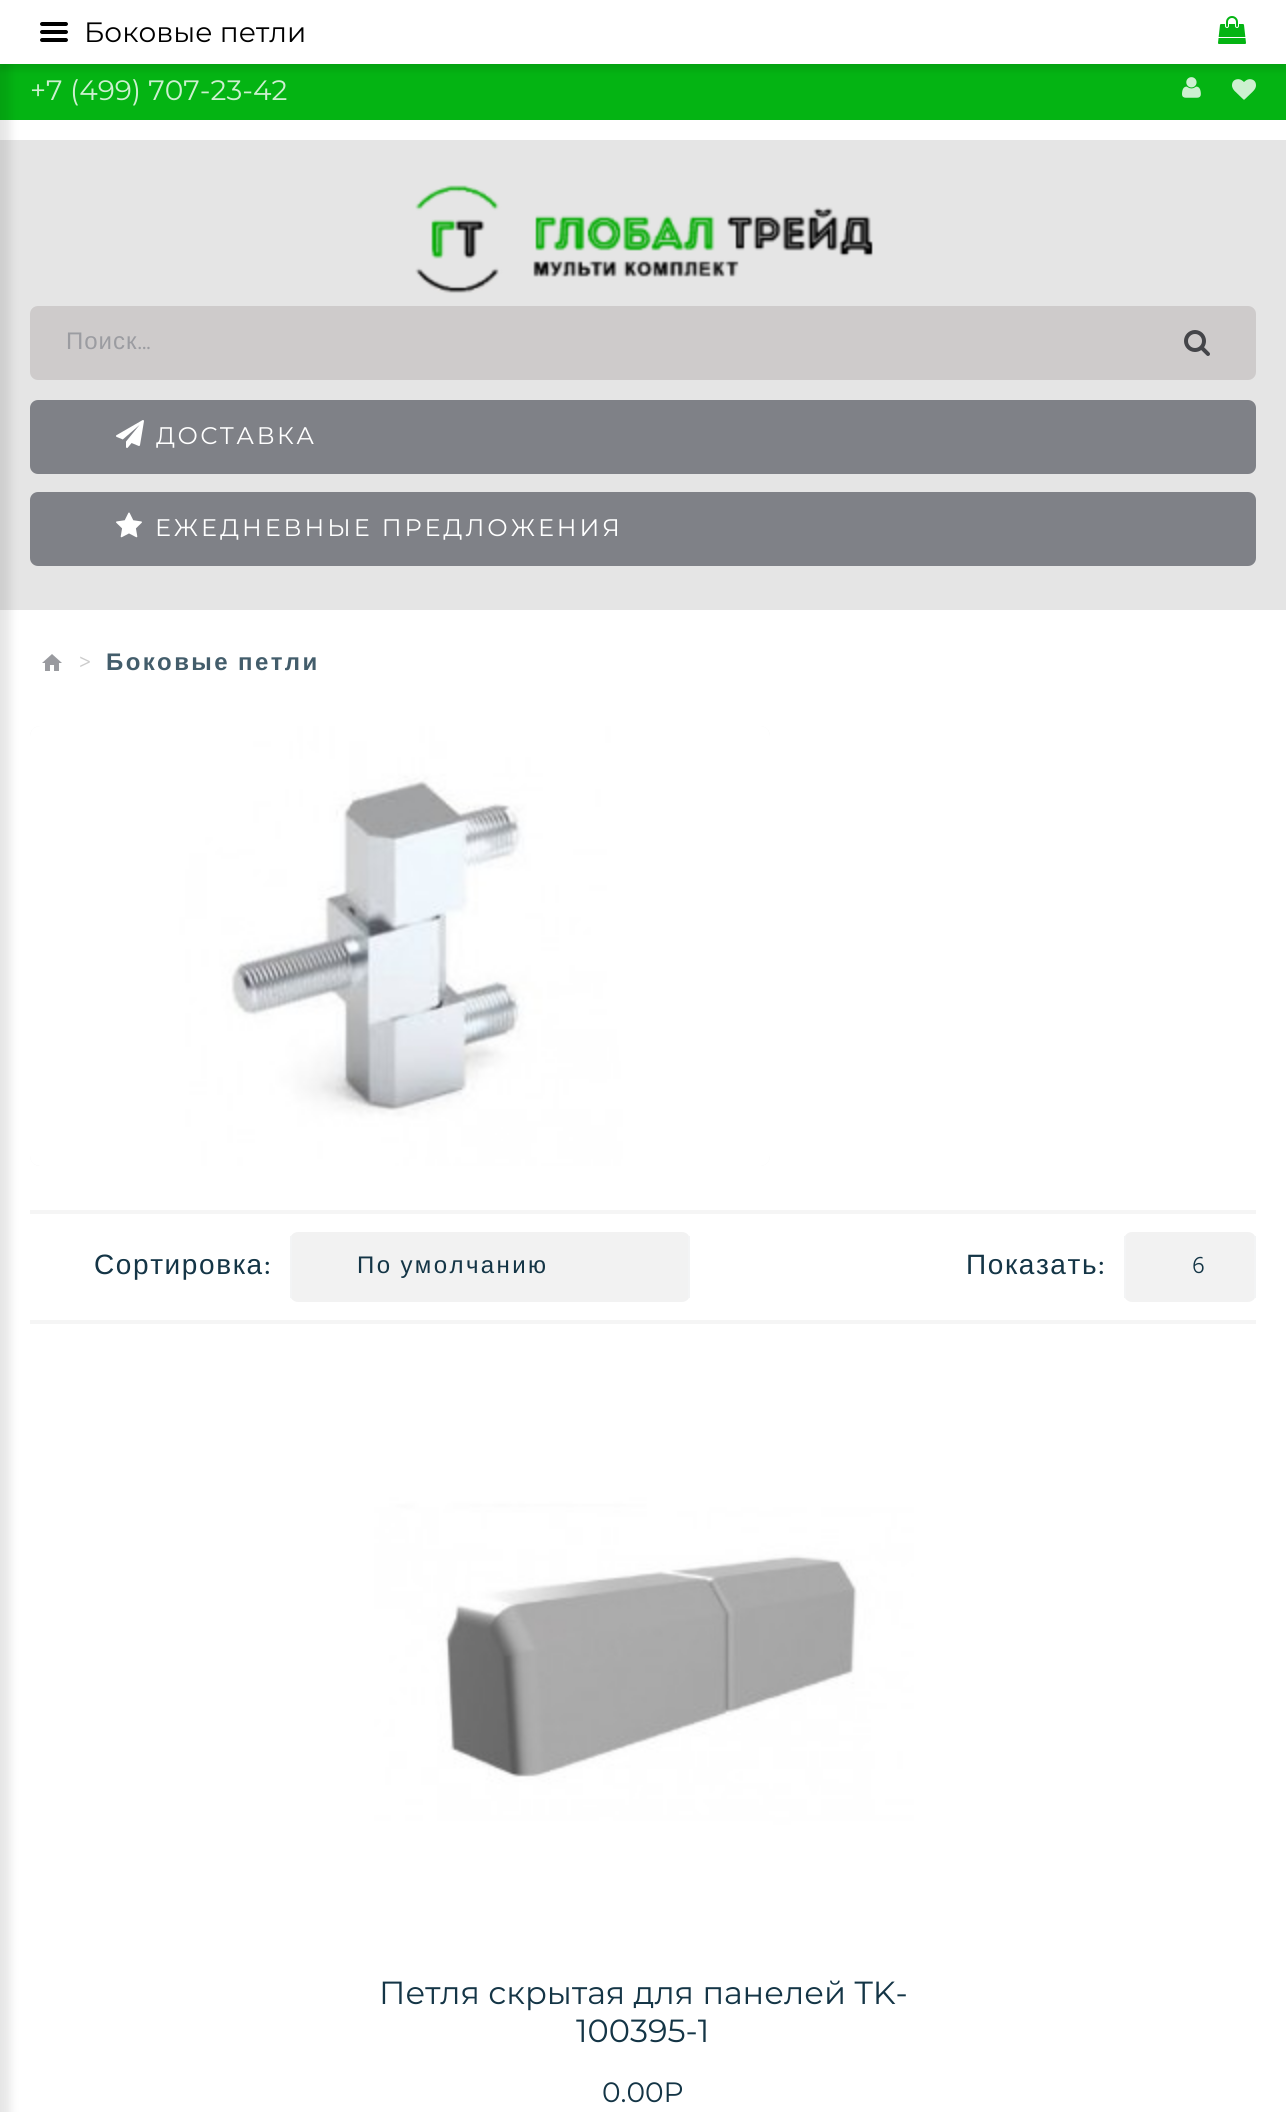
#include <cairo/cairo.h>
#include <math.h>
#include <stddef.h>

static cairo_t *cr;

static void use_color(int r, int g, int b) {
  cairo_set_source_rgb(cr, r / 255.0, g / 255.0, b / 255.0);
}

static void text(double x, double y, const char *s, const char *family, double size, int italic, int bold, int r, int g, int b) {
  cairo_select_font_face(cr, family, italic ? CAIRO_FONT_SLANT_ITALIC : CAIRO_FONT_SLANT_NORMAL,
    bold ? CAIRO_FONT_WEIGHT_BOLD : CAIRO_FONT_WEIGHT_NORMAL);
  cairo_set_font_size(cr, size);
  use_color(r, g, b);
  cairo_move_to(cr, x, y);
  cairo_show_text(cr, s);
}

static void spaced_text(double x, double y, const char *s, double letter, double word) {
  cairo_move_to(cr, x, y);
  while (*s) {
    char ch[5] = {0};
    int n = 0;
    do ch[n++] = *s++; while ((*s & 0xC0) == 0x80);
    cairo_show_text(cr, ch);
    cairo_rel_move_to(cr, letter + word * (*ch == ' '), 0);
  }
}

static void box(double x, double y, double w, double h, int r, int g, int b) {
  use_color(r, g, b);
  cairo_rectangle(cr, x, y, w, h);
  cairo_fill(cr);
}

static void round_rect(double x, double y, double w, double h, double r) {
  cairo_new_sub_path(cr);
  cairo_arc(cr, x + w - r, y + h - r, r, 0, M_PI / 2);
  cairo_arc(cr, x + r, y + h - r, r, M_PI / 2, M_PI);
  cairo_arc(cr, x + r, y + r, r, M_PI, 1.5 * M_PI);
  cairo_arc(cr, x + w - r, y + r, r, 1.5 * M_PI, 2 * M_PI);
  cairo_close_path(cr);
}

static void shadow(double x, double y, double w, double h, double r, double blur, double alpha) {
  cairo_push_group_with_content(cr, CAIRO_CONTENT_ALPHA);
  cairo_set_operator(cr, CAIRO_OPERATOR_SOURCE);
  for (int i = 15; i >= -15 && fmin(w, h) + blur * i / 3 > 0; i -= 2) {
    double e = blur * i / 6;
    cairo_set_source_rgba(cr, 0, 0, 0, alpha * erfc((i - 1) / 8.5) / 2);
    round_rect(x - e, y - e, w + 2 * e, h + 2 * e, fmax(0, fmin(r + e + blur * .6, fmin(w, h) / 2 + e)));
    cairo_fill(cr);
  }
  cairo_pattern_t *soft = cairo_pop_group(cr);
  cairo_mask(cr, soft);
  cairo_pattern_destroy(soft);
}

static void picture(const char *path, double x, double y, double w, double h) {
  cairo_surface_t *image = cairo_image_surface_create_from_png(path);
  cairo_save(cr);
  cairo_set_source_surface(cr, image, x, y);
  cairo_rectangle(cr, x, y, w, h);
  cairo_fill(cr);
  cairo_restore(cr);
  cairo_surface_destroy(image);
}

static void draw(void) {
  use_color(255, 255, 255);
  cairo_paint(cr);
  box(0, 64, 1286, 56, 4, 180, 19);
  box(0, 140, 1286, 470, 229, 229, 229);
  use_color(0, 0, 0);
  shadow(-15, -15, 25, 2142, 0, 5, 0.1);
  picture("img_02.png", 1182, 77, 19, 21);
  picture("img_03.png", 1232, 79, 24, 21);
  shadow(0, 6, 1286, 64, 0, 3, 0.1);
  box(0, 0, 1286, 64, 255, 255, 255);
  use_color(0, 0, 0);
  cairo_new_path(cr);
  cairo_move_to(cr, 66, 34);
  cairo_line_to(cr, 42, 34);
  cairo_curve_to(cr, 41, 34, 40, 33, 40, 32);
  cairo_curve_to(cr, 40, 31, 41, 30, 42, 30);
  cairo_line_to(cr, 66, 30);
  cairo_curve_to(cr, 67, 30, 68, 31, 68, 32);
  cairo_curve_to(cr, 68, 33, 67, 34, 66, 34);
  cairo_close_path(cr);
  cairo_move_to(cr, 66, 42);
  cairo_line_to(cr, 42, 42);
  cairo_curve_to(cr, 41, 42, 40, 41, 40, 40);
  cairo_curve_to(cr, 40, 39, 41, 38, 42, 38);
  cairo_line_to(cr, 66, 38);
  cairo_curve_to(cr, 67, 38, 68, 39, 68, 40);
  cairo_curve_to(cr, 68, 41, 67, 42, 66, 42);
  cairo_close_path(cr);
  cairo_move_to(cr, 66, 26);
  cairo_line_to(cr, 42, 26);
  cairo_curve_to(cr, 41, 26, 40, 25, 40, 24);
  cairo_curve_to(cr, 40, 23, 41, 22, 42, 22);
  cairo_line_to(cr, 66, 22);
  cairo_curve_to(cr, 67, 22, 68, 23, 68, 24);
  cairo_curve_to(cr, 68, 25, 67, 26, 66, 26);
  cairo_close_path(cr);
  cairo_fill(cr);
  picture("img_01.png", 1218, 16, 28, 28);
  picture("img_04.png", 415, 185, 458, 109);
  use_color(206, 203, 203);
  round_rect(30, 306, 1226, 74, 8);
  cairo_fill(cr);
  picture("img_05.png", 1184, 330, 26, 26);
  use_color(127, 129, 135);
  round_rect(30, 400, 1226, 74, 8);
  cairo_fill(cr);
  picture("img_06.png", 116, 420, 28, 28);
  round_rect(30, 492, 1226, 74, 8);
  cairo_fill(cr);
  picture("img_07.png", 116, 512, 26, 26);
  picture("img_08.png", 42, 654, 20, 17);
  use_color(247, 247, 247);
  round_rect(30, 726, 740, 440, 10);
  cairo_fill(cr);
  picture("img_09.png", 30, 726, 740, 440);
  box(30, 1210, 1226, 4, 245, 245, 245);
  box(30, 1320, 1226, 4, 245, 245, 245);
  use_color(242, 242, 242);
  round_rect(290, 1232, 400, 70, 8);
  cairo_fill(cr);
  box(688, 1236, 2, 62, 243, 244, 245);
  box(290, 1236, 2, 62, 243, 244, 245);
  use_color(242, 242, 242);
  round_rect(1124, 1232, 132, 70, 8);
  cairo_fill(cr);
  box(1254, 1236, 2, 62, 243, 244, 245);
  box(1124, 1236, 2, 62, 243, 244, 245);
  picture("img_10.png", 374, 1384, 540, 560);
  text(84, 42, "Боковые петли", "Montserrat", 28, 0, 0, 0, 0, 0);
  text(30, 100, "+7 (499) 707-23-42", "Montserrat", 28, 0, 0, 205, 240, 208);
  cairo_select_font_face(cr, "Liberation Sans", CAIRO_FONT_SLANT_NORMAL, CAIRO_FONT_WEIGHT_NORMAL);
  cairo_set_font_size(cr, 24);
  use_color(155, 156, 161);
  spaced_text(66, 349, "Поиск", 1, 0);
  cairo_select_font_face(cr, "Hind Light", CAIRO_FONT_SLANT_NORMAL, CAIRO_FONT_WEIGHT_NORMAL);
  spaced_text(138, 349, "...", 1, 0);
  cairo_select_font_face(cr, "Montserrat", CAIRO_FONT_SLANT_NORMAL, CAIRO_FONT_WEIGHT_NORMAL);
  use_color(255, 255, 255);
  spaced_text(156, 444, "ДОСТАВКА", 2.4, 0);
  spaced_text(155, 536, "ЕЖЕДНЕВНЫЕ ПРЕДЛОЖЕНИЯ", 3, 0);
  cairo_select_font_face(cr, "Hind Light", CAIRO_FONT_SLANT_NORMAL, CAIRO_FONT_WEIGHT_NORMAL);
  use_color(204, 204, 204);
  spaced_text(79, 670, ">", 2.4, 0);
  cairo_select_font_face(cr, "Liberation Sans", CAIRO_FONT_SLANT_NORMAL, CAIRO_FONT_WEIGHT_BOLD);
  use_color(67, 93, 107);
  spaced_text(106, 670, "Боковые петли", 2.4, -1);
  cairo_select_font_face(cr, "Liberation Sans", CAIRO_FONT_SLANT_NORMAL, CAIRO_FONT_WEIGHT_NORMAL);
  cairo_set_font_size(cr, 28);
  use_color(20, 53, 70);
  spaced_text(94, 1274, "Сортировка", 1.6, 0);
  cairo_select_font_face(cr, "Hind", CAIRO_FONT_SLANT_NORMAL, CAIRO_FONT_WEIGHT_NORMAL);
  spaced_text(264, 1274, ":", 1.6, 0);
  cairo_select_font_face(cr, "Liberation Sans", CAIRO_FONT_SLANT_NORMAL, CAIRO_FONT_WEIGHT_NORMAL);
  cairo_set_font_size(cr, 24);
  spaced_text(357, 1273, "По умолчанию", 2.4, -1);
  cairo_set_font_size(cr, 28);
  spaced_text(966, 1274, "Показать", 1.6, 0);
  cairo_select_font_face(cr, "Hind", CAIRO_FONT_SLANT_NORMAL, CAIRO_FONT_WEIGHT_NORMAL);
  spaced_text(1098, 1274, ":", 1.6, 0);
  cairo_select_font_face(cr, "Hind Light", CAIRO_FONT_SLANT_NORMAL, CAIRO_FONT_WEIGHT_NORMAL);
  cairo_set_font_size(cr, 24);
  spaced_text(1192, 1273, "6", 2.4, 0);
  text(379, 2004, "Петля скрытая для панелей TK-", "Montserrat", 32, 0, 0, 20, 53, 70);
  text(576, 2042, "100395-1", "Montserrat", 32, 0, 0, 20, 53, 70);
  text(602, 2102, "0.00P", "Montserrat", 28, 0, 0, 20, 53, 70);
}

int main(void) {
  cairo_surface_t *surface = cairo_image_surface_create(CAIRO_FORMAT_RGB24, 1286, 2112);
  cr = cairo_create(surface);
  cairo_font_options_t *options = cairo_font_options_create();
  cairo_font_options_set_hint_metrics(options, CAIRO_HINT_METRICS_OFF);
  cairo_font_options_set_hint_style(options, CAIRO_HINT_STYLE_NONE);
  cairo_set_font_options(cr, options);
  cairo_set_miter_limit(cr, 4);
  draw();
  cairo_surface_write_to_png(surface, "out.png");
  cairo_font_options_destroy(options);
  cairo_destroy(cr);
  cairo_surface_destroy(surface);
  return 0;
}
